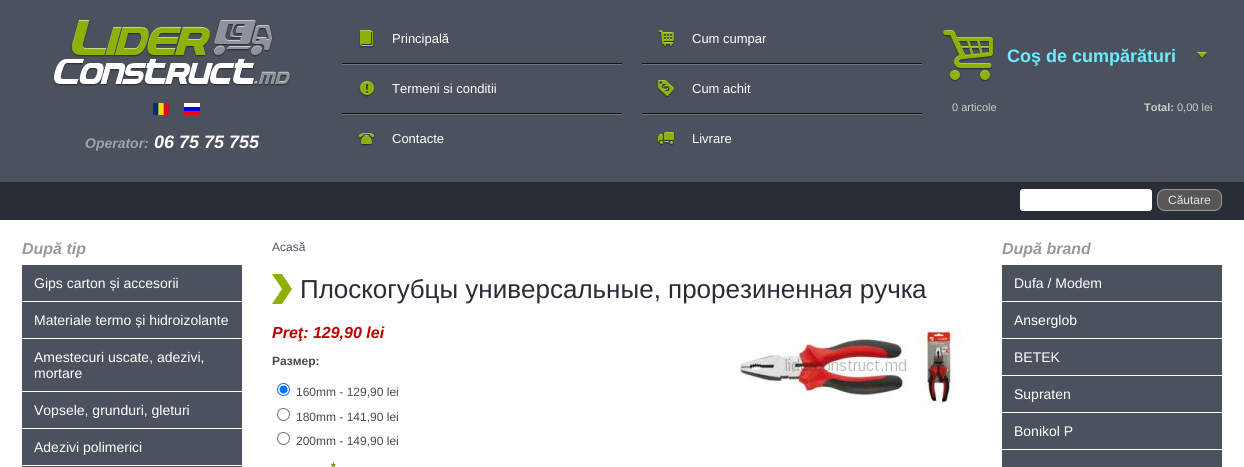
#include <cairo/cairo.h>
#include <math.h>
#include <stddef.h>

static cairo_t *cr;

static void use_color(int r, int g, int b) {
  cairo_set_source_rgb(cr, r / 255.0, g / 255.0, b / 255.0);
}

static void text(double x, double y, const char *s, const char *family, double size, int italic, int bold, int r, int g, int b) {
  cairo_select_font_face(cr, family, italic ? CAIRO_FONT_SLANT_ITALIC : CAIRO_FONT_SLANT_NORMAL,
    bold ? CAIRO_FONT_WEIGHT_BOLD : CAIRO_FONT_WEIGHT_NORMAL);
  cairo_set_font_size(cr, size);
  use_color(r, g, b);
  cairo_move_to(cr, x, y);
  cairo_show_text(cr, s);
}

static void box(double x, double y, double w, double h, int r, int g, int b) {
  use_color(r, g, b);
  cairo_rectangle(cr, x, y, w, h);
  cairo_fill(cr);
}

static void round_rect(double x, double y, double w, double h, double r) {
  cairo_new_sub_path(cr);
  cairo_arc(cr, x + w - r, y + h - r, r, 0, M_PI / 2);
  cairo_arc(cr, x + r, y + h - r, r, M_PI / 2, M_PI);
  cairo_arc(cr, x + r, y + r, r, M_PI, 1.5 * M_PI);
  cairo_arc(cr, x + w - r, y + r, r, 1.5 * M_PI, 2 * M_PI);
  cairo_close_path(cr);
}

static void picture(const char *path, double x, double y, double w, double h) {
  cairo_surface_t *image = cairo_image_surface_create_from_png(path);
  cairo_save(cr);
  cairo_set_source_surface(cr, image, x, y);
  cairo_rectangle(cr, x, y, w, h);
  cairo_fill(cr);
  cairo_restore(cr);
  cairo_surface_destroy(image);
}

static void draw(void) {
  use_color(255, 255, 255);
  cairo_paint(cr);
  picture("img_01.png", 0, 0, 1244, 220);
  picture("img_02.png", 53, 20, 238, 66);
  picture("img_03.png", 153, 103, 16, 12);
  picture("img_04.png", 184, 103, 16, 12);
  picture("img_05.png", 342, 63, 280, 2);
  picture("img_06.png", 359, 30, 15, 18);
  picture("img_05.png", 642, 63, 280, 2);
  picture("img_07.png", 658, 30, 17, 18);
  picture("img_05.png", 342, 113, 280, 2);
  picture("img_08.png", 359, 81, 16, 16);
  picture("img_05.png", 642, 113, 280, 2);
  picture("img_09.png", 657, 80, 18, 18);
  picture("img_10.png", 358, 133, 17, 13);
  picture("img_11.png", 657, 132, 18, 14);
  picture("img_12.png", 942, 30, 52, 52);
  picture("img_13.png", 1197, 52, 10, 7);
  use_color(255, 255, 255);
  round_rect(1020.5, 189.5, 131, 21, 2.5);
  cairo_fill_preserve(cr);
  cairo_set_line_width(cr, 1);
  cairo_stroke(cr);
  use_color(87, 87, 87);
  round_rect(1157.5, 189.5, 64, 21, 7.5);
  cairo_fill_preserve(cr);
  use_color(151, 151, 151);
  cairo_stroke(cr);
  box(22, 265, 220, 36, 76, 82, 93);
  box(22, 302, 220, 36, 76, 82, 93);
  box(22, 339, 220, 52, 76, 82, 93);
  box(22, 392, 220, 36, 76, 82, 93);
  box(22, 429, 220, 36, 76, 82, 93);
  box(22, 466, 220, 1, 76, 82, 93);
  picture("img_14.png", 272, 274, 20, 30);
  picture("img_15.png", 738, 328, 224, 76);
  cairo_arc(cr, 283.5, 389.5, 6, 0, 2 * M_PI);
  use_color(0, 117, 255);
  cairo_stroke(cr);
  cairo_arc(cr, 283.5, 389.5, 4, 0, 2 * M_PI);
  cairo_fill(cr);
  cairo_arc(cr, 283.5, 414.5, 6, 0, 2 * M_PI);
  use_color(118, 118, 118);
  cairo_stroke(cr);
  cairo_arc(cr, 283.5, 438.5, 6, 0, 2 * M_PI);
  cairo_stroke(cr);
  box(1002, 265, 220, 36, 76, 82, 93);
  box(1002, 302, 220, 36, 76, 82, 93);
  box(1002, 339, 220, 36, 76, 82, 93);
  box(1002, 376, 220, 36, 76, 82, 93);
  box(1002, 413, 220, 36, 76, 82, 93);
  box(1002, 450, 220, 17, 76, 82, 93);
  text(85, 148, "Operator:", "Liberation Sans", 14, 1, 1, 158, 163, 171);
  text(154, 148, "06 75 75 755", "Liberation Sans", 18, 1, 1, 255, 255, 255);
  text(392, 43, "Principală", "Liberation Sans", 13, 0, 0, 255, 255, 255);
  text(692, 43, "Cum cumpar", "Liberation Sans", 13, 0, 0, 255, 255, 255);
  text(392, 93, "Termeni si conditii", "Liberation Sans", 13, 0, 0, 255, 255, 255);
  text(692, 93, "Cum achit", "Liberation Sans", 13, 0, 0, 255, 255, 255);
  text(392, 143, "Contacte", "Liberation Sans", 13, 0, 0, 255, 255, 255);
  text(692, 143, "Livrare", "Liberation Sans", 13, 0, 0, 255, 255, 255);
  text(1007, 62, "Coş de cumpărături", "Liberation Sans", 18, 0, 1, 109, 236, 255);
  text(952, 111, "0 articole", "Liberation Sans", 11, 0, 0, 204, 204, 204);
  text(1144, 111, "Total:", "Liberation Sans", 11, 0, 1, 204, 204, 204);
  text(1177, 111, "0,00 lei", "Liberation Sans", 11, 0, 0, 204, 204, 204);
  text(1168, 204, "Căutare", "Liberation Sans", 12, 0, 0, 228, 228, 228);
  text(22, 254, "După tip", "Liberation Sans", 16, 1, 1, 153, 153, 153);
  text(34, 288, "Gips carton și accesorii", "Liberation Sans", 14, 0, 0, 255, 255, 255);
  text(34, 325, "Materiale termo și hidroizolante", "Liberation Sans", 14, 0, 0, 255, 255, 255);
  text(34, 362, "Amestecuri uscate, adezivi,", "Liberation Sans", 14, 0, 0, 255, 255, 255);
  text(34, 378, "mortare", "Liberation Sans", 14, 0, 0, 255, 255, 255);
  text(34, 415, "Vopsele, grunduri, gleturi", "Liberation Sans", 14, 0, 0, 255, 255, 255);
  text(34, 452, "Adezivi polimerici", "Liberation Sans", 14, 0, 0, 255, 255, 255);
  text(272, 251, "Acasă", "Liberation Sans", 12, 0, 0, 76, 82, 93);
  text(300, 298, "Плоскогубцы универсальные, прорезиненная ручка", "Liberation Sans", 26, 0, 0, 40, 45, 54);
  text(272, 338, "Preţ: 129,90 lei", "Liberation Sans", 16, 1, 1, 190, 0, 0);
  text(272, 365, "Размер:", "Liberation Sans", 12, 0, 1, 73, 73, 73);
  text(296, 396, "160mm - 129,90 lei", "Liberation Sans", 12, 0, 0, 73, 73, 73);
  text(296, 421, "180mm - 141,90 lei", "Liberation Sans", 12, 0, 0, 73, 73, 73);
  text(296, 445, "200mm - 149,90 lei", "Liberation Sans", 12, 0, 0, 73, 73, 73);
  text(331, 471, "*", "Liberation Sans", 12, 0, 1, 104, 133, 3);
  text(1002, 254, "După brand", "Liberation Sans", 16, 1, 1, 153, 153, 153);
  text(1014, 288, "Dufa / Modem", "Liberation Sans", 14, 0, 0, 255, 255, 255);
  text(1014, 325, "Anserglob", "Liberation Sans", 14, 0, 0, 255, 255, 255);
  text(1014, 362, "BETEK", "Liberation Sans", 14, 0, 0, 255, 255, 255);
  text(1014, 399, "Supraten", "Liberation Sans", 14, 0, 0, 255, 255, 255);
  text(1014, 436, "Bonikol P", "Liberation Sans", 14, 0, 0, 255, 255, 255);
}

int main(void) {
  cairo_surface_t *surface = cairo_image_surface_create(CAIRO_FORMAT_RGB24, 1244, 467);
  cr = cairo_create(surface);
  cairo_font_options_t *options = cairo_font_options_create();
  cairo_font_options_set_hint_metrics(options, CAIRO_HINT_METRICS_OFF);
  cairo_font_options_set_hint_style(options, CAIRO_HINT_STYLE_NONE);
  cairo_set_font_options(cr, options);
  cairo_set_miter_limit(cr, 4);
  draw();
  cairo_surface_write_to_png(surface, "out.png");
  cairo_font_options_destroy(options);
  cairo_destroy(cr);
  cairo_surface_destroy(surface);
  return 0;
}
